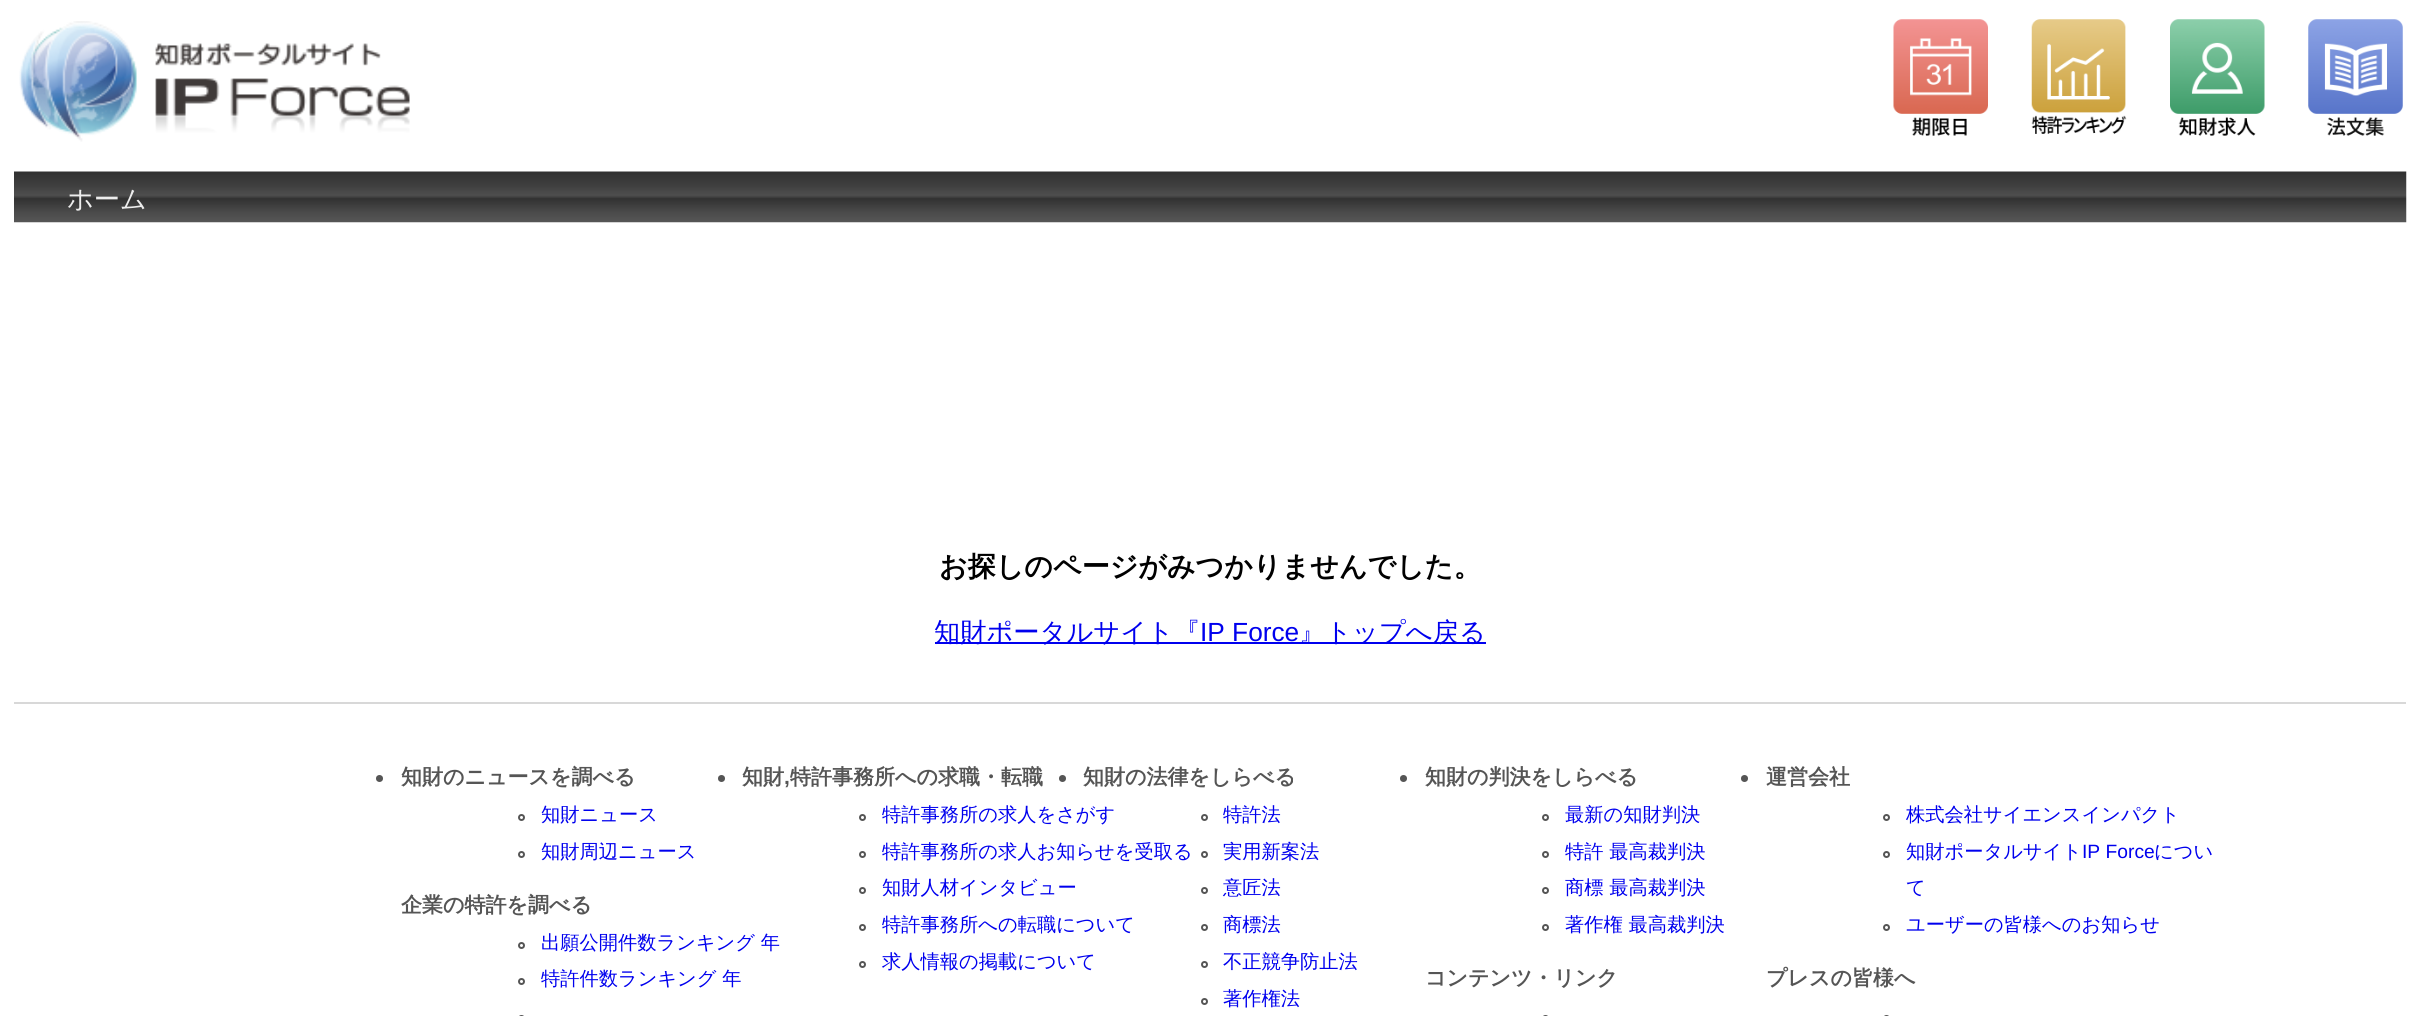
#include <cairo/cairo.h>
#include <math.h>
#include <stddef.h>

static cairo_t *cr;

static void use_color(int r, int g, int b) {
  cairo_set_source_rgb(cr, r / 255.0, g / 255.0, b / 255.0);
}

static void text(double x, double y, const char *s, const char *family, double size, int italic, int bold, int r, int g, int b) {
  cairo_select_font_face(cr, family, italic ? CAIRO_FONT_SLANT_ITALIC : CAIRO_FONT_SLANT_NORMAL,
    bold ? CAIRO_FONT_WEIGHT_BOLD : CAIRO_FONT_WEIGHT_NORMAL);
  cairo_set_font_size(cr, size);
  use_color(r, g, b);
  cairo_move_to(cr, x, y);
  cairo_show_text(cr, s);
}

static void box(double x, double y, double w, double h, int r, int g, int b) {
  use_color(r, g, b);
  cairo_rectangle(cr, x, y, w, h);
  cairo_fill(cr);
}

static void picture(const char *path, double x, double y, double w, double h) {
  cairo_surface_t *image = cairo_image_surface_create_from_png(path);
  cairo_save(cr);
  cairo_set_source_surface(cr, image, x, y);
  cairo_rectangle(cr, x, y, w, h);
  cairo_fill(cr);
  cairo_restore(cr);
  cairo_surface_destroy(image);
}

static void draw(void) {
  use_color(255, 255, 255);
  cairo_paint(cr);
  picture("img_01.png", 19, 21, 391, 121);
  picture("img_02.png", 1893, 19, 95, 117);
  picture("img_03.png", 2031, 19, 96, 115);
  picture("img_04.png", 2170, 19, 95, 117);
  picture("img_05.png", 2308, 19, 95, 117);
  picture("img_06.png", 14, 171, 2393, 52);
  box(935, 642, 551, 2, 0, 0, 238);
  box(14, 702, 2392, 2, 216, 216, 216);
  use_color(85, 85, 85);
  cairo_arc(cr, 379.5, 778.5, 3.5, 0, 2 * M_PI);
  cairo_fill(cr);
  cairo_arc(cr, 521.5, 817.5, 2.5, 0, 2 * M_PI);
  cairo_stroke(cr);
  cairo_arc(cr, 521.5, 854.5, 2.5, 0, 2 * M_PI);
  cairo_stroke(cr);
  cairo_arc(cr, 521.5, 945.5, 2.5, 0, 2 * M_PI);
  cairo_stroke(cr);
  cairo_arc(cr, 521.5, 981.5, 2.5, 0, 2 * M_PI);
  cairo_stroke(cr);
  cairo_arc(cr, 521.5, 1018.5, 2.5, 0, 2 * M_PI);
  cairo_stroke(cr);
  cairo_arc(cr, 721.5, 778.5, 3.5, 0, 2 * M_PI);
  cairo_fill(cr);
  cairo_arc(cr, 862.5, 817.5, 2.5, 0, 2 * M_PI);
  cairo_stroke(cr);
  cairo_arc(cr, 862.5, 854.5, 2.5, 0, 2 * M_PI);
  cairo_stroke(cr);
  cairo_arc(cr, 862.5, 890.5, 2.5, 0, 2 * M_PI);
  cairo_stroke(cr);
  cairo_arc(cr, 862.5, 927.5, 2.5, 0, 2 * M_PI);
  cairo_stroke(cr);
  cairo_arc(cr, 862.5, 964.5, 2.5, 0, 2 * M_PI);
  cairo_stroke(cr);
  cairo_arc(cr, 1062.5, 778.5, 3.5, 0, 2 * M_PI);
  cairo_fill(cr);
  cairo_arc(cr, 1204.5, 817.5, 2.5, 0, 2 * M_PI);
  cairo_stroke(cr);
  cairo_arc(cr, 1204.5, 854.5, 2.5, 0, 2 * M_PI);
  cairo_stroke(cr);
  cairo_arc(cr, 1204.5, 890.5, 2.5, 0, 2 * M_PI);
  cairo_stroke(cr);
  cairo_arc(cr, 1204.5, 927.5, 2.5, 0, 2 * M_PI);
  cairo_stroke(cr);
  cairo_arc(cr, 1204.5, 964.5, 2.5, 0, 2 * M_PI);
  cairo_stroke(cr);
  cairo_arc(cr, 1204.5, 1001.5, 2.5, 0, 2 * M_PI);
  cairo_stroke(cr);
  cairo_arc(cr, 1403.5, 778.5, 3.5, 0, 2 * M_PI);
  cairo_fill(cr);
  cairo_arc(cr, 1545.5, 817.5, 2.5, 0, 2 * M_PI);
  cairo_stroke(cr);
  cairo_arc(cr, 1545.5, 854.5, 2.5, 0, 2 * M_PI);
  cairo_stroke(cr);
  cairo_arc(cr, 1545.5, 890.5, 2.5, 0, 2 * M_PI);
  cairo_stroke(cr);
  cairo_arc(cr, 1545.5, 927.5, 2.5, 0, 2 * M_PI);
  cairo_stroke(cr);
  cairo_arc(cr, 1545.5, 1018.5, 2.5, 0, 2 * M_PI);
  cairo_stroke(cr);
  cairo_arc(cr, 1744.5, 778.5, 3.5, 0, 2 * M_PI);
  cairo_fill(cr);
  cairo_arc(cr, 1886.5, 817.5, 2.5, 0, 2 * M_PI);
  cairo_stroke(cr);
  cairo_arc(cr, 1886.5, 854.5, 2.5, 0, 2 * M_PI);
  cairo_stroke(cr);
  cairo_arc(cr, 1886.5, 927.5, 2.5, 0, 2 * M_PI);
  cairo_stroke(cr);
  cairo_arc(cr, 1886.5, 1018.5, 2.5, 0, 2 * M_PI);
  cairo_stroke(cr);
  text(67, 208, "ホーム", "WenQuanYi Zen Hei Medium", 26.25, 0, 0, 237, 237, 237);
  text(939, 576, "お探しのページがみつかりませんでした。", "WenQuanYi Zen Hei", 28, 0, 1, 0, 0, 0);
  text(934, 641, "知財ポータルサイト『", "WenQuanYi Zen Hei Medium", 26.25, 0, 0, 0, 0, 238);
  text(1200, 641, "IP Force", "Liberation Sans", 26.25, 0, 0, 0, 0, 238);
  text(1299, 641, "』トップへ戻る", "WenQuanYi Zen Hei Medium", 26.25, 0, 0, 0, 0, 238);
  text(401, 784, "知財のニュースを調べる", "WenQuanYi Zen Hei", 21, 0, 1, 85, 85, 85);
  text(541, 821, "知財ニュース", "WenQuanYi Zen Hei Medium", 19.25, 0, 0, 0, 0, 238);
  text(541, 858, "知財周辺ニュース", "WenQuanYi Zen Hei Medium", 19.25, 0, 0, 0, 0, 238);
  text(401, 912, "企業の特許を調べる", "WenQuanYi Zen Hei", 21, 0, 1, 85, 85, 85);
  text(541, 949, "出願公開件数ランキング 年", "WenQuanYi Zen Hei Medium", 19.25, 0, 0, 0, 0, 238);
  text(541, 985, "特許件数ランキング 年", "WenQuanYi Zen Hei Medium", 19.25, 0, 0, 0, 0, 238);
  text(742, 784, "知財", "WenQuanYi Zen Hei", 21, 0, 1, 85, 85, 85);
  text(784, 784, ",", "Liberation Sans", 21, 0, 1, 85, 85, 85);
  text(790, 784, "特許事務所への求職・転職", "WenQuanYi Zen Hei", 21, 0, 1, 85, 85, 85);
  text(882, 821, "特許事務所の求人をさがす", "WenQuanYi Zen Hei Medium", 19.25, 0, 0, 0, 0, 238);
  text(882, 858, "特許事務所の求人お知らせを受取る", "WenQuanYi Zen Hei Medium", 19.25, 0, 0, 0, 0, 238);
  text(882, 894, "知財人材インタビュー", "WenQuanYi Zen Hei Medium", 19.25, 0, 0, 0, 0, 238);
  text(882, 931, "特許事務所への転職について", "WenQuanYi Zen Hei Medium", 19.25, 0, 0, 0, 0, 238);
  text(882, 968, "求人情報の掲載について", "WenQuanYi Zen Hei Medium", 19.25, 0, 0, 0, 0, 238);
  text(1083, 784, "知財の法律をしらべる", "WenQuanYi Zen Hei", 21, 0, 1, 85, 85, 85);
  text(1223, 821, "特許法", "WenQuanYi Zen Hei Medium", 19.25, 0, 0, 0, 0, 238);
  text(1223, 858, "実用新案法", "WenQuanYi Zen Hei Medium", 19.25, 0, 0, 0, 0, 238);
  text(1223, 894, "意匠法", "WenQuanYi Zen Hei Medium", 19.25, 0, 0, 0, 0, 238);
  text(1223, 931, "商標法", "WenQuanYi Zen Hei Medium", 19.25, 0, 0, 0, 0, 238);
  text(1223, 968, "不正競争防止法", "WenQuanYi Zen Hei Medium", 19.25, 0, 0, 0, 0, 238);
  text(1223, 1005, "著作権法", "WenQuanYi Zen Hei Medium", 19.25, 0, 0, 0, 0, 238);
  text(1425, 784, "知財の判決をしらべる", "WenQuanYi Zen Hei", 21, 0, 1, 85, 85, 85);
  text(1565, 821, "最新の知財判決", "WenQuanYi Zen Hei Medium", 19.25, 0, 0, 0, 0, 238);
  text(1565, 858, "特許 最高裁判決", "WenQuanYi Zen Hei Medium", 19.25, 0, 0, 0, 0, 238);
  text(1565, 894, "商標 最高裁判決", "WenQuanYi Zen Hei Medium", 19.25, 0, 0, 0, 0, 238);
  text(1565, 931, "著作権 最高裁判決", "WenQuanYi Zen Hei Medium", 19.25, 0, 0, 0, 0, 238);
  text(1425, 985, "コンテンツ・リンク", "WenQuanYi Zen Hei", 21, 0, 1, 85, 85, 85);
  text(1766, 784, "運営会社", "WenQuanYi Zen Hei", 21, 0, 1, 85, 85, 85);
  text(1906, 821, "株式会社サイエンスインパクト", "WenQuanYi Zen Hei Medium", 19.25, 0, 0, 0, 0, 238);
  text(1906, 858, "知財ポータルサイト", "WenQuanYi Zen Hei Medium", 19.25, 0, 0, 0, 0, 238);
  text(2082, 858, "IP Force", "Liberation Sans", 19.25, 0, 0, 0, 0, 238);
  text(2154, 858, "につい", "WenQuanYi Zen Hei Medium", 19.25, 0, 0, 0, 0, 238);
  text(1906, 894, "て", "WenQuanYi Zen Hei Medium", 19.25, 0, 0, 0, 0, 238);
  text(1906, 931, "ユーザーの皆様へのお知らせ", "WenQuanYi Zen Hei Medium", 19.25, 0, 0, 0, 0, 238);
  text(1766, 985, "プレスの皆様へ", "WenQuanYi Zen Hei", 21, 0, 1, 85, 85, 85);
}

int main(void) {
  cairo_surface_t *surface = cairo_image_surface_create(CAIRO_FORMAT_RGB24, 2420, 1016);
  cr = cairo_create(surface);
  cairo_font_options_t *options = cairo_font_options_create();
  cairo_font_options_set_hint_metrics(options, CAIRO_HINT_METRICS_OFF);
  cairo_font_options_set_hint_style(options, CAIRO_HINT_STYLE_NONE);
  cairo_set_font_options(cr, options);
  cairo_set_miter_limit(cr, 4);
  draw();
  cairo_surface_write_to_png(surface, "out.png");
  cairo_font_options_destroy(options);
  cairo_destroy(cr);
  cairo_surface_destroy(surface);
  return 0;
}
